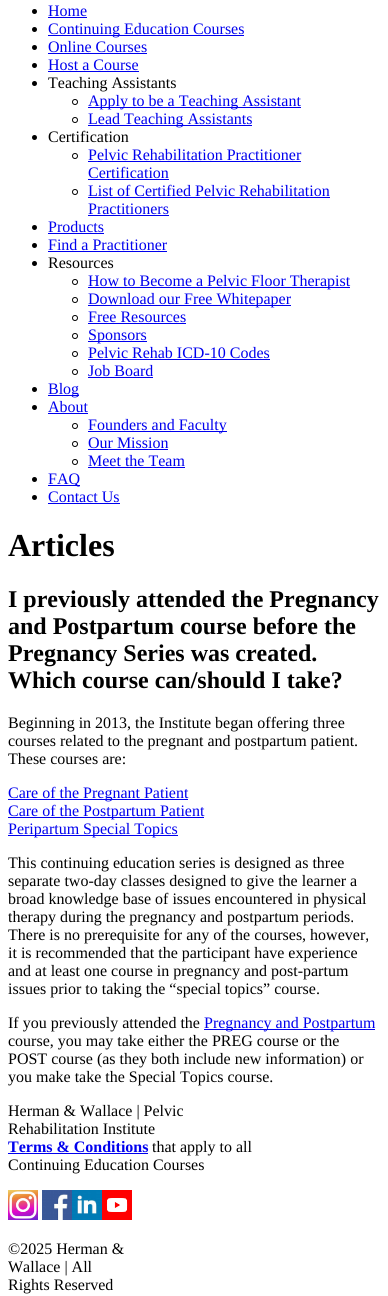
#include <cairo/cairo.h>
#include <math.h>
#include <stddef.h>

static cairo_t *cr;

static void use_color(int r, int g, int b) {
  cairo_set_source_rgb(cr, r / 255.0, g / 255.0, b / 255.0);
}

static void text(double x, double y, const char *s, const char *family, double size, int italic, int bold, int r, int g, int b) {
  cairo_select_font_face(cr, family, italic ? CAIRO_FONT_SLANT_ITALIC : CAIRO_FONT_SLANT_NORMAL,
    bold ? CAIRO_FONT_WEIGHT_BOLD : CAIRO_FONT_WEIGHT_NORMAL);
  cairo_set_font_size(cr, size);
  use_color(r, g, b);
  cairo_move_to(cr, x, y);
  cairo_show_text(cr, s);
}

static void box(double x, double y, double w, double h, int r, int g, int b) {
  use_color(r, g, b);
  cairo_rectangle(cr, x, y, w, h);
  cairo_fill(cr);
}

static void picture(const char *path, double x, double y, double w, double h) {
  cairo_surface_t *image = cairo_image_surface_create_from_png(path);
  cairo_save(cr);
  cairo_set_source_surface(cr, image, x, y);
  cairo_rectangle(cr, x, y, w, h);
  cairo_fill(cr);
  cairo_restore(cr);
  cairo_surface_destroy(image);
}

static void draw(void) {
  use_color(255, 255, 255);
  cairo_paint(cr);
  use_color(0, 0, 0);
  cairo_arc(cr, 34.5, 11.5, 2.5, 0, 2 * M_PI);
  cairo_fill(cr);
  box(48, 17, 39, 1, 0, 0, 238);
  use_color(0, 0, 0);
  cairo_arc(cr, 34.5, 29.5, 2.5, 0, 2 * M_PI);
  cairo_fill(cr);
  box(48, 35, 196, 1, 0, 0, 238);
  use_color(0, 0, 0);
  cairo_arc(cr, 34.5, 47.5, 2.5, 0, 2 * M_PI);
  cairo_fill(cr);
  box(48, 53, 99, 1, 0, 0, 238);
  use_color(0, 0, 0);
  cairo_arc(cr, 34.5, 65.5, 2.5, 0, 2 * M_PI);
  cairo_fill(cr);
  box(48, 71, 91, 1, 0, 0, 238);
  use_color(0, 0, 0);
  cairo_arc(cr, 34.5, 83.5, 2.5, 0, 2 * M_PI);
  cairo_fill(cr);
  cairo_arc(cr, 75, 102, 2.5, 0, 2 * M_PI);
  cairo_set_line_width(cr, 1);
  cairo_stroke(cr);
  box(88, 107, 213, 1, 0, 0, 238);
  cairo_arc(cr, 75, 120, 2.5, 0, 2 * M_PI);
  use_color(0, 0, 0);
  cairo_stroke(cr);
  box(88, 125, 164, 1, 0, 0, 238);
  use_color(0, 0, 0);
  cairo_arc(cr, 34.5, 137.5, 2.5, 0, 2 * M_PI);
  cairo_fill(cr);
  cairo_arc(cr, 75, 156, 2.5, 0, 2 * M_PI);
  cairo_stroke(cr);
  box(88, 161, 213, 1, 0, 0, 238);
  box(88, 179, 81, 1, 0, 0, 238);
  cairo_arc(cr, 75, 192, 2.5, 0, 2 * M_PI);
  use_color(0, 0, 0);
  cairo_stroke(cr);
  box(88, 197, 242, 1, 0, 0, 238);
  box(88, 215, 81, 1, 0, 0, 238);
  use_color(0, 0, 0);
  cairo_arc(cr, 34.5, 227.5, 2.5, 0, 2 * M_PI);
  cairo_fill(cr);
  box(48, 233, 56, 1, 0, 0, 238);
  use_color(0, 0, 0);
  cairo_arc(cr, 34.5, 245.5, 2.5, 0, 2 * M_PI);
  cairo_fill(cr);
  box(48, 251, 119, 1, 0, 0, 238);
  use_color(0, 0, 0);
  cairo_arc(cr, 34.5, 263.5, 2.5, 0, 2 * M_PI);
  cairo_fill(cr);
  cairo_arc(cr, 75, 282, 2.5, 0, 2 * M_PI);
  cairo_stroke(cr);
  box(88, 287, 262, 1, 0, 0, 238);
  cairo_arc(cr, 75, 300, 2.5, 0, 2 * M_PI);
  use_color(0, 0, 0);
  cairo_stroke(cr);
  box(88, 305, 203, 1, 0, 0, 238);
  cairo_arc(cr, 75, 318, 2.5, 0, 2 * M_PI);
  use_color(0, 0, 0);
  cairo_stroke(cr);
  box(88, 323, 98, 1, 0, 0, 238);
  cairo_arc(cr, 75, 336, 2.5, 0, 2 * M_PI);
  use_color(0, 0, 0);
  cairo_stroke(cr);
  box(88, 341, 59, 1, 0, 0, 238);
  cairo_arc(cr, 75, 354, 2.5, 0, 2 * M_PI);
  use_color(0, 0, 0);
  cairo_stroke(cr);
  box(88, 359, 182, 1, 0, 0, 238);
  cairo_arc(cr, 75, 372, 2.5, 0, 2 * M_PI);
  use_color(0, 0, 0);
  cairo_stroke(cr);
  box(88, 377, 65, 1, 0, 0, 238);
  use_color(0, 0, 0);
  cairo_arc(cr, 34.5, 389.5, 2.5, 0, 2 * M_PI);
  cairo_fill(cr);
  box(48, 395, 31, 1, 0, 0, 238);
  use_color(0, 0, 0);
  cairo_arc(cr, 34.5, 407.5, 2.5, 0, 2 * M_PI);
  cairo_fill(cr);
  box(48, 413, 40, 1, 0, 0, 238);
  cairo_arc(cr, 75, 426, 2.5, 0, 2 * M_PI);
  use_color(0, 0, 0);
  cairo_stroke(cr);
  box(88, 431, 139, 1, 0, 0, 238);
  cairo_arc(cr, 75, 444, 2.5, 0, 2 * M_PI);
  use_color(0, 0, 0);
  cairo_stroke(cr);
  box(88, 449, 80, 1, 0, 0, 238);
  cairo_arc(cr, 75, 462, 2.5, 0, 2 * M_PI);
  use_color(0, 0, 0);
  cairo_stroke(cr);
  box(88, 467, 97, 1, 0, 0, 238);
  use_color(0, 0, 0);
  cairo_arc(cr, 34.5, 479.5, 2.5, 0, 2 * M_PI);
  cairo_fill(cr);
  box(48, 485, 32, 1, 0, 0, 238);
  use_color(0, 0, 0);
  cairo_arc(cr, 34.5, 497.5, 2.5, 0, 2 * M_PI);
  cairo_fill(cr);
  box(48, 503, 72, 1, 0, 0, 238);
  box(8, 799, 180, 1, 0, 0, 238);
  box(8, 817, 196, 1, 0, 0, 238);
  box(8, 835, 170, 1, 0, 0, 238);
  box(204, 1029, 171, 1, 0, 0, 238);
  box(8, 1153, 140, 1, 0, 0, 238);
  picture("img_01.png", 8, 1190, 30, 30);
  picture("img_02.png", 42, 1190, 30, 30);
  picture("img_03.png", 72, 1190, 30, 30);
  picture("img_04.png", 102, 1190, 30, 30);
  text(48, 16, "Home", "Liberation Serif", 16, 0, 0, 0, 0, 238);
  text(48, 34, "Continuing Education Courses", "Liberation Serif", 16, 0, 0, 0, 0, 238);
  text(48, 52, "Online Courses", "Liberation Serif", 16, 0, 0, 0, 0, 238);
  text(48, 70, "Host a Course", "Liberation Serif", 16, 0, 0, 0, 0, 238);
  text(48, 88, "Teaching Assistants", "Liberation Serif", 16, 0, 0, 0, 0, 0);
  text(88, 106, "Apply to be a Teaching Assistant", "Liberation Serif", 16, 0, 0, 0, 0, 238);
  text(88, 124, "Lead Teaching Assistants", "Liberation Serif", 16, 0, 0, 0, 0, 238);
  text(48, 142, "Certification", "Liberation Serif", 16, 0, 0, 0, 0, 0);
  text(88, 160, "Pelvic Rehabilitation Practitioner", "Liberation Serif", 16, 0, 0, 0, 0, 238);
  text(88, 178, "Certification", "Liberation Serif", 16, 0, 0, 0, 0, 238);
  text(88, 196, "List of Certified Pelvic Rehabilitation", "Liberation Serif", 16, 0, 0, 0, 0, 238);
  text(88, 214, "Practitioners", "Liberation Serif", 16, 0, 0, 0, 0, 238);
  text(48, 232, "Products", "Liberation Serif", 16, 0, 0, 0, 0, 238);
  text(48, 250, "Find a Practitioner", "Liberation Serif", 16, 0, 0, 0, 0, 238);
  text(48, 268, "Resources", "Liberation Serif", 16, 0, 0, 0, 0, 0);
  text(88, 286, "How to Become a Pelvic Floor Therapist", "Liberation Serif", 16, 0, 0, 0, 0, 238);
  text(88, 304, "Download our Free Whitepaper", "Liberation Serif", 16, 0, 0, 0, 0, 238);
  text(88, 322, "Free Resources", "Liberation Serif", 16, 0, 0, 0, 0, 238);
  text(88, 340, "Sponsors", "Liberation Serif", 16, 0, 0, 0, 0, 238);
  text(88, 358, "Pelvic Rehab ICD-10 Codes", "Liberation Serif", 16, 0, 0, 0, 0, 238);
  text(88, 376, "Job Board", "Liberation Serif", 16, 0, 0, 0, 0, 238);
  text(48, 394, "Blog", "Liberation Serif", 16, 0, 0, 0, 0, 238);
  text(48, 412, "About", "Liberation Serif", 16, 0, 0, 0, 0, 238);
  text(88, 430, "Founders and Faculty", "Liberation Serif", 16, 0, 0, 0, 0, 238);
  text(88, 448, "Our Mission", "Liberation Serif", 16, 0, 0, 0, 0, 238);
  text(88, 466, "Meet the Team", "Liberation Serif", 16, 0, 0, 0, 0, 238);
  text(48, 484, "FAQ", "Liberation Serif", 16, 0, 0, 0, 0, 238);
  text(48, 502, "Contact Us", "Liberation Serif", 16, 0, 0, 0, 0, 238);
  text(8, 556, "Articles", "Liberation Serif", 32, 0, 1, 0, 0, 0);
  text(8, 607, "I previously attended the Pregnancy", "Liberation Serif", 24, 0, 1, 0, 0, 0);
  text(8, 634, "and Postpartum course before the", "Liberation Serif", 24, 0, 1, 0, 0, 0);
  text(8, 661, "Pregnancy Series was created.", "Liberation Serif", 24, 0, 1, 0, 0, 0);
  text(8, 688, "Which course can/should I take?", "Liberation Serif", 24, 0, 1, 0, 0, 0);
  text(8, 728, "Beginning in 2013, the Institute began offering three", "Liberation Serif", 16, 0, 0, 0, 0, 0);
  text(8, 746, "courses related to the pregnant and postpartum patient.", "Liberation Serif", 16, 0, 0, 0, 0, 0);
  text(8, 764, "These courses are:", "Liberation Serif", 16, 0, 0, 0, 0, 0);
  text(8, 798, "Care of the Pregnant Patient", "Liberation Serif", 16, 0, 0, 0, 0, 238);
  text(8, 816, "Care of the Postpartum Patient", "Liberation Serif", 16, 0, 0, 0, 0, 238);
  text(8, 834, "Peripartum Special Topics", "Liberation Serif", 16, 0, 0, 0, 0, 238);
  text(8, 868, "This continuing education series is designed as three", "Liberation Serif", 16, 0, 0, 0, 0, 0);
  text(8, 886, "separate two-day classes designed to give the learner a", "Liberation Serif", 16, 0, 0, 0, 0, 0);
  text(8, 904, "broad knowledge base of issues encountered in physical", "Liberation Serif", 16, 0, 0, 0, 0, 0);
  text(8, 922, "therapy during the pregnancy and postpartum periods.", "Liberation Serif", 16, 0, 0, 0, 0, 0);
  text(8, 940, "There is no prerequisite for any of the courses, however,", "Liberation Serif", 16, 0, 0, 0, 0, 0);
  text(8, 958, "it is recommended that the participant have experience", "Liberation Serif", 16, 0, 0, 0, 0, 0);
  text(8, 976, "and at least one course in pregnancy and post-partum", "Liberation Serif", 16, 0, 0, 0, 0, 0);
  text(8, 994, "issues prior to taking the “special topics” course.", "Liberation Serif", 16, 0, 0, 0, 0, 0);
  text(8, 1028, "If you previously attended the", "Liberation Serif", 16, 0, 0, 0, 0, 0);
  text(204, 1028, "Pregnancy and Postpartum", "Liberation Serif", 16, 0, 0, 0, 0, 238);
  text(8, 1046, "course, you may take either the PREG course or the", "Liberation Serif", 16, 0, 0, 0, 0, 0);
  text(8, 1064, "POST course (as they both include new information) or", "Liberation Serif", 16, 0, 0, 0, 0, 0);
  text(8, 1082, "you make take the Special Topics course.", "Liberation Serif", 16, 0, 0, 0, 0, 0);
  text(8, 1116, "Herman & Wallace | Pelvic", "Liberation Serif", 16, 0, 0, 0, 0, 0);
  text(8, 1134, "Rehabilitation Institute", "Liberation Serif", 16, 0, 0, 0, 0, 0);
  text(8, 1152, "Terms & Conditions", "Liberation Serif", 16, 0, 1, 0, 0, 238);
  text(152, 1152, "that apply to all", "Liberation Serif", 16, 0, 0, 0, 0, 0);
  text(8, 1170, "Continuing Education Courses", "Liberation Serif", 16, 0, 0, 0, 0, 0);
  text(8, 1254, "©2025 Herman &", "Liberation Serif", 16, 0, 0, 0, 0, 0);
  text(8, 1272, "Wallace | All", "Liberation Serif", 16, 0, 0, 0, 0, 0);
  text(8, 1290, "Rights Reserved", "Liberation Serif", 16, 0, 0, 0, 0, 0);
}

int main(void) {
  cairo_surface_t *surface = cairo_image_surface_create(CAIRO_FORMAT_RGB24, 388, 1296);
  cr = cairo_create(surface);
  cairo_font_options_t *options = cairo_font_options_create();
  cairo_font_options_set_hint_metrics(options, CAIRO_HINT_METRICS_OFF);
  cairo_font_options_set_hint_style(options, CAIRO_HINT_STYLE_NONE);
  cairo_set_font_options(cr, options);
  cairo_set_miter_limit(cr, 4);
  draw();
  cairo_surface_write_to_png(surface, "out.png");
  cairo_font_options_destroy(options);
  cairo_destroy(cr);
  cairo_surface_destroy(surface);
  return 0;
}
